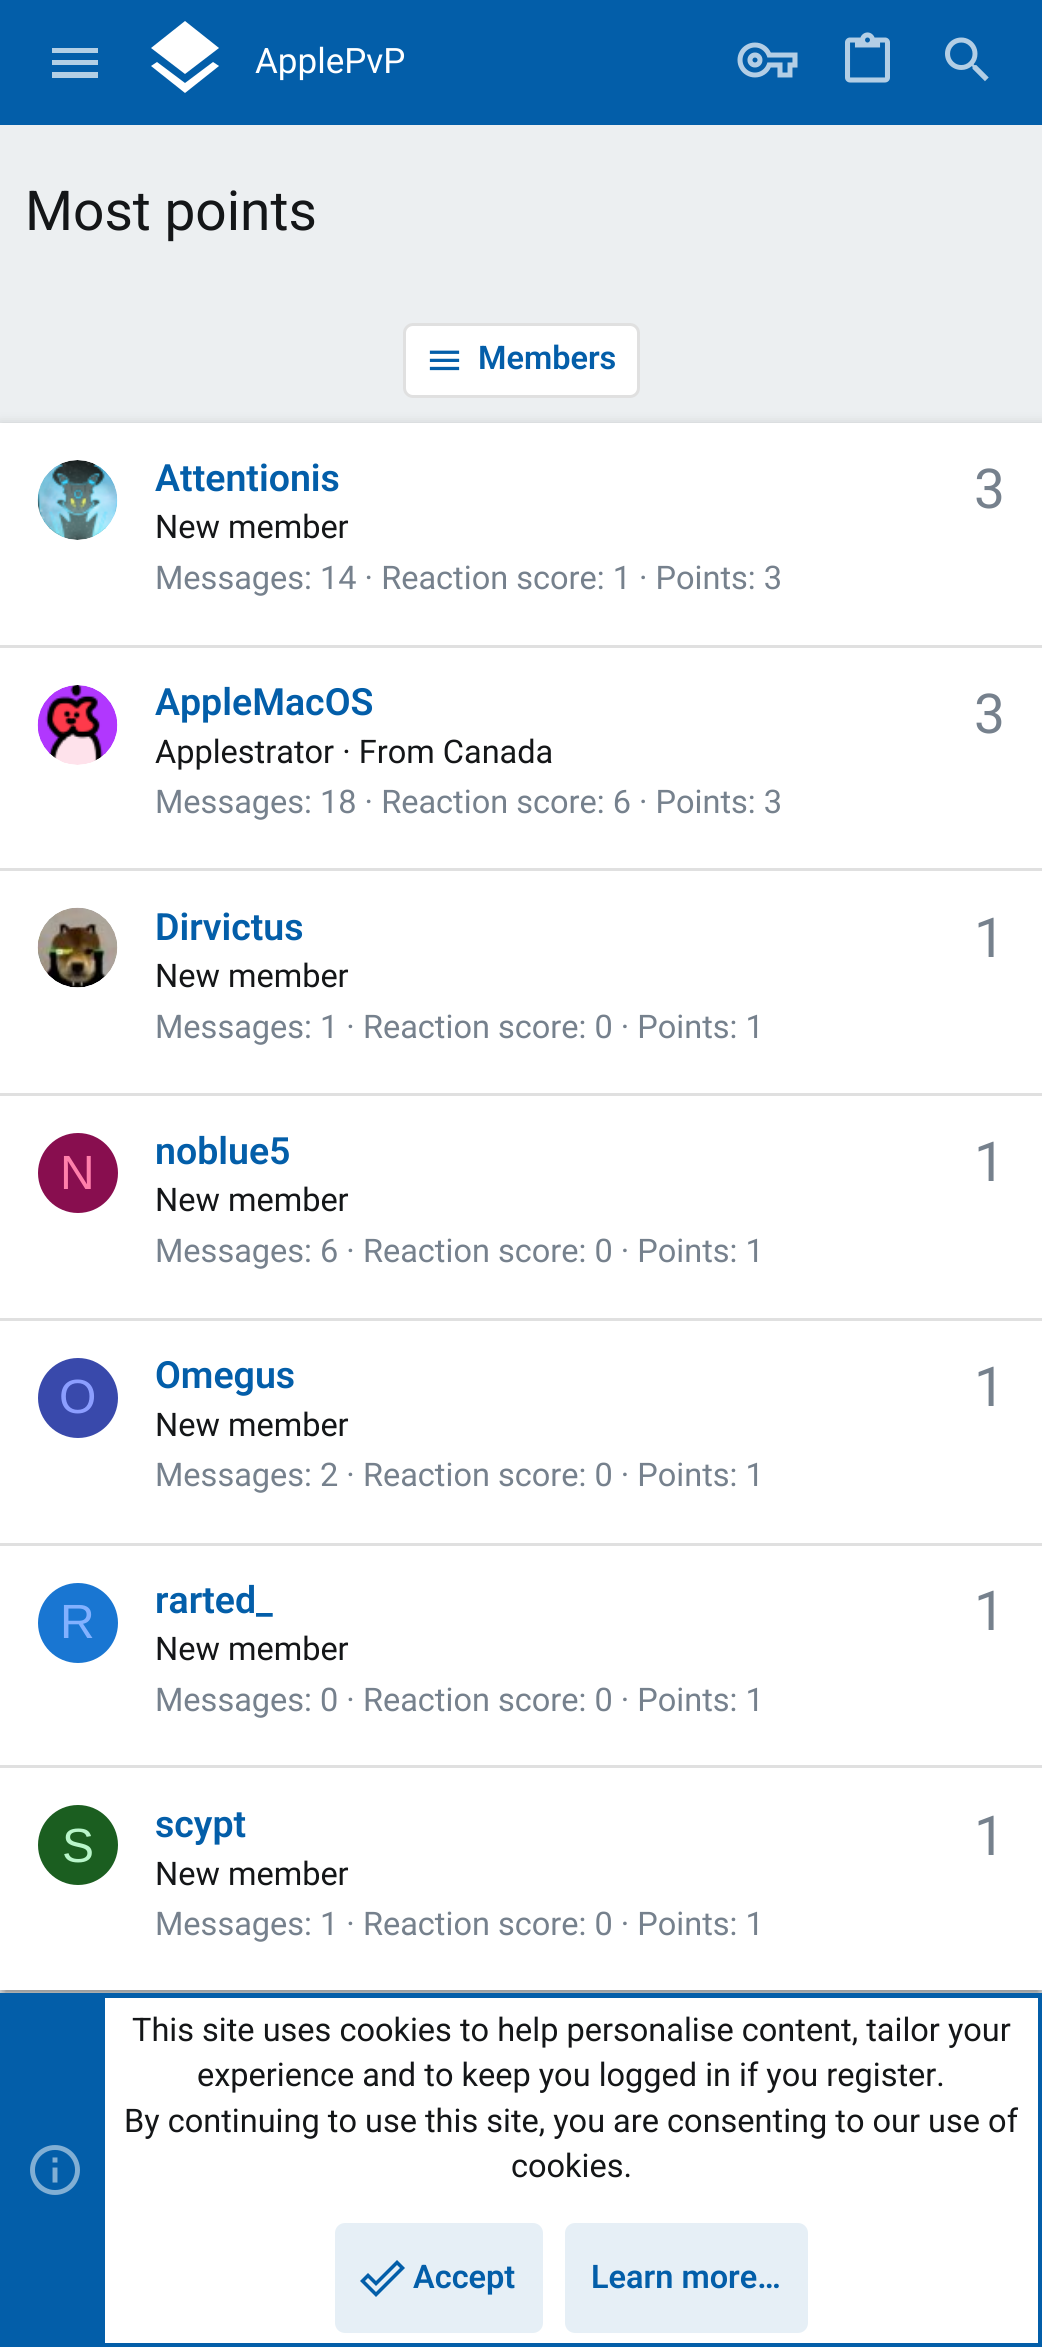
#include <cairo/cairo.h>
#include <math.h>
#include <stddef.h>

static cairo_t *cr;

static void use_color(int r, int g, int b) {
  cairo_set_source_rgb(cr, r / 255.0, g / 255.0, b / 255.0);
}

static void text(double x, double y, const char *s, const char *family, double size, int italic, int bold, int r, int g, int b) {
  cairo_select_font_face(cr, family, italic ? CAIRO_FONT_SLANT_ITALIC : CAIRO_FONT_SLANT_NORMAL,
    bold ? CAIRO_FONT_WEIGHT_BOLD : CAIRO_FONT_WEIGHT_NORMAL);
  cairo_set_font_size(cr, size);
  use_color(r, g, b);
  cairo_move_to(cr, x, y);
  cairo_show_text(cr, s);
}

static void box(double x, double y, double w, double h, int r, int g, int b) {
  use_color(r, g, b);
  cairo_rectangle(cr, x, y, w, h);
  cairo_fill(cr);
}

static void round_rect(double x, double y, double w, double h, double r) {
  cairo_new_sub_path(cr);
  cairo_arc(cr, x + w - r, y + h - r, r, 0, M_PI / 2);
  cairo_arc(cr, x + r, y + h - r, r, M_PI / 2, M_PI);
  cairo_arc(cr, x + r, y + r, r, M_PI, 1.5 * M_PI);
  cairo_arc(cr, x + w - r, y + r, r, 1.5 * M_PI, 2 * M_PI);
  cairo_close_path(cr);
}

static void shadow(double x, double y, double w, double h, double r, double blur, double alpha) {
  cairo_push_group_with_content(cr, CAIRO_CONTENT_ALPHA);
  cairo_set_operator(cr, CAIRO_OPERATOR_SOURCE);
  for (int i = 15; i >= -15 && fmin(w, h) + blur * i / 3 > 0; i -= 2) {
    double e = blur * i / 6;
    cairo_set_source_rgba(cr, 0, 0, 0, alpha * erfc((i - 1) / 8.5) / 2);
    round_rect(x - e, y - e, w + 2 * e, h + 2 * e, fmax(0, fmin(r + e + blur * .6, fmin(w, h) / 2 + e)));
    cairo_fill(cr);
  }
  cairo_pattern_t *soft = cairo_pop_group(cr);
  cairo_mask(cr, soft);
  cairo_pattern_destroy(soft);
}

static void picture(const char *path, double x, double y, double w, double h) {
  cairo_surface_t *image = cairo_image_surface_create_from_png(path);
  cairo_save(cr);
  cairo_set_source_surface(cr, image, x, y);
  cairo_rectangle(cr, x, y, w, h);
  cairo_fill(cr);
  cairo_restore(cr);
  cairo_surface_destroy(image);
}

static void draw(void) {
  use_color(236, 239, 241);
  cairo_paint(cr);
  box(0, 0, 1042, 125, 3, 94, 169);
  use_color(179, 207, 229);
  cairo_new_path(cr);
  cairo_move_to(cr, 52, 48);
  cairo_line_to(cr, 98, 48);
  cairo_line_to(cr, 98, 53);
  cairo_line_to(cr, 52, 53);
  cairo_close_path(cr);
  cairo_move_to(cr, 52, 60);
  cairo_line_to(cr, 98, 60);
  cairo_line_to(cr, 98, 65);
  cairo_line_to(cr, 52, 65);
  cairo_close_path(cr);
  cairo_move_to(cr, 52, 72);
  cairo_line_to(cr, 98, 72);
  cairo_line_to(cr, 98, 78);
  cairo_line_to(cr, 52, 78);
  cairo_close_path(cr);
  cairo_fill(cr);
  use_color(255, 255, 255);
  cairo_new_path(cr);
  cairo_move_to(cr, 185, 74);
  cairo_line_to(cr, 219, 48);
  cairo_line_to(cr, 185, 21);
  cairo_line_to(cr, 151, 48);
  cairo_close_path(cr);
  cairo_move_to(cr, 185, 83);
  cairo_line_to(cr, 157, 62);
  cairo_line_to(cr, 151, 66);
  cairo_line_to(cr, 185, 93);
  cairo_line_to(cr, 219, 66);
  cairo_line_to(cr, 213, 62);
  cairo_close_path(cr);
  cairo_fill(cr);
  picture("img_01.png", 737, 42, 61, 36);
  picture("img_02.png", 845, 32, 45, 51);
  picture("img_03.png", 945, 37, 44, 45);
  round_rect(404.5, 324.5, 234, 72, 8.5);
  cairo_fill_preserve(cr);
  use_color(224, 224, 224);
  cairo_set_line_width(cr, 3);
  cairo_stroke(cr);
  picture("img_04.png", 429, 350, 31, 21);
  use_color(0, 0, 0);
  shadow(0, 425, 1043, 1568, 0, 6, 0.2);
  shadow(5, 435, 1033, 1558, 0, 1, 0.12);
  shadow(0, 428, 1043, 1567, 0, 2.5, 0.14);
  box(0, 423, 1042, 1567, 255, 255, 255);
  picture("img_05.png", 37, 460, 81, 80);
  box(0, 645, 1042, 3, 224, 224, 224);
  picture("img_06.png", 37, 685, 81, 80);
  box(0, 868, 1042, 3, 224, 224, 224);
  picture("img_07.png", 37, 907, 81, 81);
  box(0, 1093, 1042, 3, 224, 224, 224);
  use_color(136, 14, 79);
  cairo_arc(cr, 78, 1173, 40, 0, 2 * M_PI);
  cairo_fill(cr);
  box(0, 1318, 1042, 3, 224, 224, 224);
  use_color(57, 73, 171);
  cairo_arc(cr, 78, 1398, 40, 0, 2 * M_PI);
  cairo_fill(cr);
  box(0, 1543, 1042, 3, 224, 224, 224);
  use_color(25, 118, 210);
  cairo_arc(cr, 78, 1623, 40, 0, 2 * M_PI);
  cairo_fill(cr);
  box(0, 1765, 1042, 3, 224, 224, 224);
  use_color(27, 94, 32);
  cairo_arc(cr, 78, 1845, 40, 0, 2 * M_PI);
  cairo_fill(cr);
  box(105, 1998, 933, 345, 255, 255, 255);
  cairo_rectangle(cr, 2.5, 1995.5, 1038, 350);
  use_color(3, 94, 169);
  cairo_set_line_width(cr, 5);
  cairo_stroke(cr);
  box(5, 1998, 100, 345, 3, 94, 169);
  picture("img_08.png", 30, 2145, 50, 50);
  use_color(230, 239, 246);
  round_rect(335, 2223, 208, 110, 10);
  cairo_fill(cr);
  use_color(3, 94, 169);
  cairo_new_path(cr);
  cairo_move_to(cr, 397, 2260);
  cairo_line_to(cr, 405, 2268);
  cairo_line_to(cr, 376, 2297);
  cairo_line_to(cr, 360, 2281);
  cairo_line_to(cr, 368, 2273);
  cairo_line_to(cr, 376, 2281);
  cairo_close_path(cr);
  cairo_move_to(cr, 397, 2265);
  cairo_line_to(cr, 376, 2286);
  cairo_line_to(cr, 368, 2278);
  cairo_line_to(cr, 365, 2281);
  cairo_line_to(cr, 376, 2292);
  cairo_line_to(cr, 400, 2268);
  cairo_close_path(cr);
  cairo_fill(cr);
  use_color(230, 239, 246);
  round_rect(565, 2223, 243, 110, 10);
  cairo_fill(cr);
  text(255, 73, "ApplePvP", "Roboto", 35, 0, 0, 255, 255, 255);
  text(25, 230, "Most points", "Roboto", 55, 0, 0, 20, 22, 24);
  text(478, 369, "Members", "Roboto SemiBold", 32.5, 0, 0, 3, 94, 169);
  text(155, 491, "Attentionis", "Roboto SemiBold", 37.5, 0, 0, 3, 94, 169);
  text(974, 508, "3", "Roboto", 55, 0, 0, 118, 129, 141);
  text(155, 538, "New member", "Roboto", 32.5, 0, 0, 20, 22, 24);
  text(155, 589, "Messages: 14 · Reaction score: 1 · Points: 3", "Roboto", 32.5, 0, 0, 118, 129, 141);
  text(155, 715, "AppleMacOS", "Roboto SemiBold", 37.5, 0, 0, 3, 94, 169);
  text(974, 733, "3", "Roboto", 55, 0, 0, 118, 129, 141);
  text(155, 763, "Applestrator · From Canada", "Roboto", 32.5, 0, 0, 20, 22, 24);
  text(155, 813, "Messages: 18 · Reaction score: 6 · Points: 3", "Roboto", 32.5, 0, 0, 118, 129, 141);
  text(155, 940, "Dirvictus", "Roboto SemiBold", 37.5, 0, 0, 3, 94, 169);
  text(974, 957, "1", "Roboto", 55, 0, 0, 118, 129, 141);
  text(155, 987, "New member", "Roboto", 32.5, 0, 0, 20, 22, 24);
  text(155, 1038, "Messages: 1 · Reaction score: 0 · Points: 1", "Roboto", 32.5, 0, 0, 118, 129, 141);
  text(60, 1189, "N", "Liberation Sans", 48, 0, 0, 255, 128, 171);
  text(155, 1164, "noblue5", "Roboto SemiBold", 37.5, 0, 0, 3, 94, 169);
  text(974, 1181, "1", "Roboto", 55, 0, 0, 118, 129, 141);
  text(155, 1211, "New member", "Roboto", 32.5, 0, 0, 20, 22, 24);
  text(155, 1262, "Messages: 6 · Reaction score: 0 · Points: 1", "Roboto", 32.5, 0, 0, 118, 129, 141);
  text(59, 1413, "O", "Liberation Sans", 48, 0, 0, 140, 158, 255);
  text(155, 1388, "Omegus", "Roboto SemiBold", 37.5, 0, 0, 3, 94, 169);
  text(974, 1406, "1", "Roboto", 55, 0, 0, 118, 129, 141);
  text(155, 1436, "New member", "Roboto", 32.5, 0, 0, 20, 22, 24);
  text(155, 1486, "Messages: 2 · Reaction score: 0 · Points: 1", "Roboto", 32.5, 0, 0, 118, 129, 141);
  text(60, 1638, "R", "Liberation Sans", 48, 0, 0, 130, 177, 255);
  text(155, 1613, "rarted_", "Roboto SemiBold", 37.5, 0, 0, 3, 94, 169);
  text(974, 1630, "1", "Roboto", 55, 0, 0, 118, 129, 141);
  text(155, 1660, "New member", "Roboto", 32.5, 0, 0, 20, 22, 24);
  text(155, 1711, "Messages: 0 · Reaction score: 0 · Points: 1", "Roboto", 32.5, 0, 0, 118, 129, 141);
  text(62, 1862, "S", "Liberation Sans", 48, 0, 0, 185, 246, 202);
  text(155, 1837, "scypt", "Roboto SemiBold", 37.5, 0, 0, 3, 94, 169);
  text(974, 1855, "1", "Roboto", 55, 0, 0, 118, 129, 141);
  text(155, 1885, "New member", "Roboto", 32.5, 0, 0, 20, 22, 24);
  text(155, 1935, "Messages: 1 · Reaction score: 0 · Points: 1", "Roboto", 32.5, 0, 0, 118, 129, 141);
  text(132, 2041, "This site uses cookies to help personalise content, tailor your", "Roboto", 32.5, 0, 0, 20, 22, 24);
  text(197, 2086, "experience and to keep you logged in if you register.", "Roboto", 32.5, 0, 0, 20, 22, 24);
  text(124, 2132, "By continuing to use this site, you are consenting to our use of", "Roboto", 32.5, 0, 0, 20, 22, 24);
  text(511, 2177, "cookies.", "Roboto", 32.5, 0, 0, 20, 22, 24);
  text(413, 2288, "Accept", "Roboto SemiBold", 32.5, 0, 0, 3, 94, 169);
  text(591, 2288, "Learn more…", "Roboto SemiBold", 32.5, 0, 0, 3, 94, 169);
}

int main(void) {
  cairo_surface_t *surface = cairo_image_surface_create(CAIRO_FORMAT_RGB24, 1042, 2347);
  cr = cairo_create(surface);
  cairo_font_options_t *options = cairo_font_options_create();
  cairo_font_options_set_hint_metrics(options, CAIRO_HINT_METRICS_OFF);
  cairo_font_options_set_hint_style(options, CAIRO_HINT_STYLE_NONE);
  cairo_set_font_options(cr, options);
  cairo_set_miter_limit(cr, 4);
  draw();
  cairo_surface_write_to_png(surface, "out.png");
  cairo_font_options_destroy(options);
  cairo_destroy(cr);
  cairo_surface_destroy(surface);
  return 0;
}
